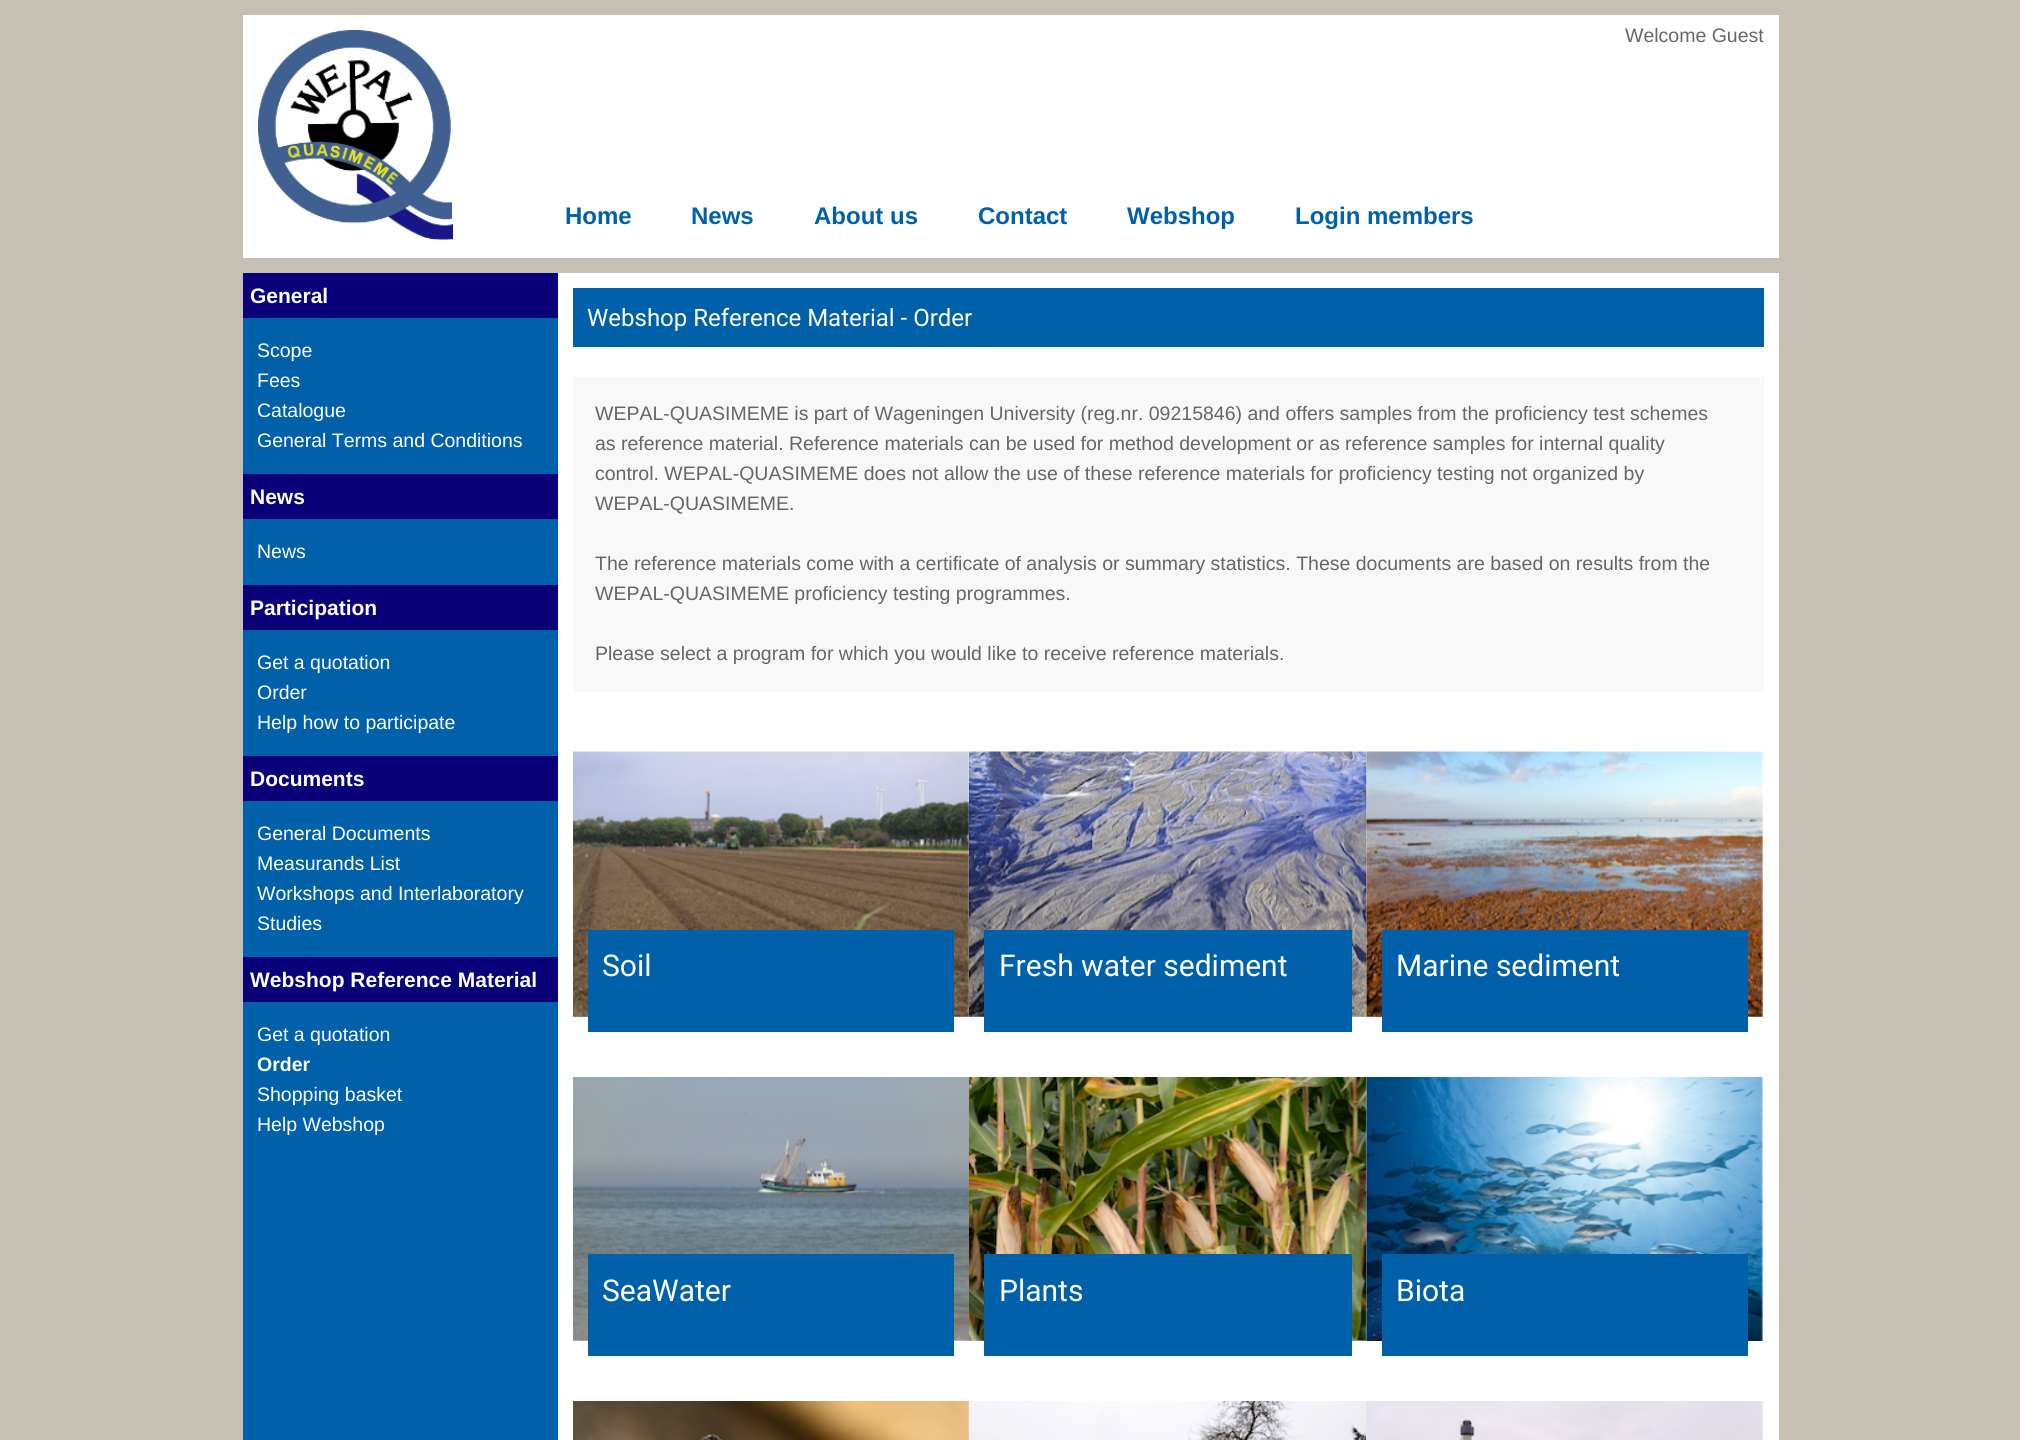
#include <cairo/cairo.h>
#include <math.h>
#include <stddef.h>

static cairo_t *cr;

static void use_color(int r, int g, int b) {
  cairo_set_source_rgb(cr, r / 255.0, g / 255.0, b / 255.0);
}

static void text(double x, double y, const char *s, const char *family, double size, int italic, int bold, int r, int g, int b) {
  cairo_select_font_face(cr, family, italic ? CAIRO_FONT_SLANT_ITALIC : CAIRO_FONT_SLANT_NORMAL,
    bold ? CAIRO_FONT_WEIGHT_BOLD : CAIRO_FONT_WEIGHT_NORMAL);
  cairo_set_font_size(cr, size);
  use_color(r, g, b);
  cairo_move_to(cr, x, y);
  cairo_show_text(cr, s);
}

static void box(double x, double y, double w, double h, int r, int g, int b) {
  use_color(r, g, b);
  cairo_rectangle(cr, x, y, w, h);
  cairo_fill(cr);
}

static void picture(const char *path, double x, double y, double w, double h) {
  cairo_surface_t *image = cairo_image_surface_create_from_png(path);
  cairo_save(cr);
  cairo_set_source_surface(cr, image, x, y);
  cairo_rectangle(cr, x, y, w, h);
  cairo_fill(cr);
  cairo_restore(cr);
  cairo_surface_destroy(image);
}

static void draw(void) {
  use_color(198, 191, 179);
  cairo_paint(cr);
  box(243, 15, 1536, 243, 255, 255, 255);
  picture("img_01.png", 258, 30, 195, 210);
  box(243, 318, 315, 1122, 0, 96, 170);
  box(243, 273, 315, 45, 10, 0, 122);
  box(243, 474, 315, 45, 10, 0, 122);
  box(243, 585, 315, 45, 10, 0, 122);
  box(243, 756, 315, 45, 10, 0, 122);
  box(243, 957, 315, 45, 10, 0, 122);
  box(558, 273, 1221, 1167, 255, 255, 255);
  box(573, 288, 1191, 59, 0, 96, 170);
  box(573, 377, 1191, 315, 248, 248, 248);
  picture("img_02.png", 573, 751, 396, 266);
  box(588, 930, 366, 102, 0, 96, 170);
  picture("img_03.png", 969, 751, 398, 266);
  box(984, 930, 368, 102, 0, 96, 170);
  picture("img_04.png", 1366, 751, 397, 266);
  box(1382, 930, 366, 102, 0, 96, 170);
  picture("img_05.png", 573, 1077, 396, 264);
  box(588, 1254, 366, 102, 0, 96, 170);
  picture("img_06.png", 969, 1077, 398, 264);
  box(984, 1254, 368, 102, 0, 96, 170);
  picture("img_07.png", 1366, 1077, 397, 264);
  box(1382, 1254, 366, 102, 0, 96, 170);
  picture("img_08.png", 573, 1401, 396, 39);
  picture("img_09.png", 969, 1401, 397, 39);
  picture("img_10.png", 1366, 1401, 397, 39);
  text(1625, 42, "Welcome Guest", "Liberation Sans", 19.5, 0, 0, 102, 102, 102);
  text(565, 224, "Home", "Liberation Sans", 24, 0, 1, 0, 96, 170);
  text(691, 224, "News", "Liberation Sans", 24, 0, 1, 0, 96, 170);
  text(814, 224, "About us", "Liberation Sans", 24, 0, 1, 0, 96, 170);
  text(978, 224, "Contact", "Liberation Sans", 24, 0, 1, 0, 96, 170);
  text(1127, 224, "Webshop", "Liberation Sans", 24, 0, 1, 0, 96, 170);
  text(1295, 224, "Login members", "Liberation Sans", 24, 0, 1, 0, 96, 170);
  text(250, 303, "General", "Liberation Sans", 21, 0, 1, 255, 255, 255);
  text(257, 357, "Scope", "Liberation Sans", 19.5, 0, 0, 255, 255, 255);
  text(257, 387, "Fees", "Liberation Sans", 19.5, 0, 0, 255, 255, 255);
  text(257, 417, "Catalogue", "Liberation Sans", 19.5, 0, 0, 255, 255, 255);
  text(257, 447, "General Terms and Conditions", "Liberation Sans", 19.5, 0, 0, 255, 255, 255);
  text(250, 504, "News", "Liberation Sans", 21, 0, 1, 255, 255, 255);
  text(257, 558, "News", "Liberation Sans", 19.5, 0, 0, 255, 255, 255);
  text(250, 615, "Participation", "Liberation Sans", 21, 0, 1, 255, 255, 255);
  text(257, 669, "Get a quotation", "Liberation Sans", 19.5, 0, 0, 255, 255, 255);
  text(257, 699, "Order", "Liberation Sans", 19.5, 0, 0, 255, 255, 255);
  text(257, 729, "Help how to participate", "Liberation Sans", 19.5, 0, 0, 255, 255, 255);
  text(250, 786, "Documents", "Liberation Sans", 21, 0, 1, 255, 255, 255);
  text(257, 840, "General Documents", "Liberation Sans", 19.5, 0, 0, 255, 255, 255);
  text(257, 870, "Measurands List", "Liberation Sans", 19.5, 0, 0, 255, 255, 255);
  text(257, 900, "Workshops and Interlaboratory", "Liberation Sans", 19.5, 0, 0, 255, 255, 255);
  text(257, 930, "Studies", "Liberation Sans", 19.5, 0, 0, 255, 255, 255);
  text(250, 987, "Webshop Reference Material", "Liberation Sans", 21, 0, 1, 255, 255, 255);
  text(257, 1041, "Get a quotation", "Liberation Sans", 19.5, 0, 0, 255, 255, 255);
  text(257, 1071, "Order", "Liberation Sans", 19.5, 0, 1, 255, 255, 255);
  text(257, 1101, "Shopping basket", "Liberation Sans", 19.5, 0, 0, 255, 255, 255);
  text(257, 1131, "Help Webshop", "Liberation Sans", 19.5, 0, 0, 255, 255, 255);
  text(587, 326, "Webshop Reference Material - Order", "Roboto", 24, 0, 0, 255, 255, 255);
  text(595, 420, "WEPAL-QUASIMEME is part of Wageningen University (reg.nr. 09215846) and offers samples from the proficiency test schemes", "Liberation Sans", 19.5, 0, 0, 102, 102, 102);
  text(595, 450, "as reference material. Reference materials can be used for method development or as reference samples for internal quality", "Liberation Sans", 19.5, 0, 0, 102, 102, 102);
  text(595, 480, "control. WEPAL-QUASIMEME does not allow the use of these reference materials for proficiency testing not organized by", "Liberation Sans", 19.5, 0, 0, 102, 102, 102);
  text(595, 510, "WEPAL-QUASIMEME.", "Liberation Sans", 19.5, 0, 0, 102, 102, 102);
  text(595, 570, "The reference materials come with a certificate of analysis or summary statistics. These documents are based on results from the", "Liberation Sans", 19.5, 0, 0, 102, 102, 102);
  text(595, 600, "WEPAL-QUASIMEME proficiency testing programmes.", "Liberation Sans", 19.5, 0, 0, 102, 102, 102);
  text(595, 660, "Please select a program for which you would like to receive reference materials.", "Liberation Sans", 19.5, 0, 0, 102, 102, 102);
  text(602, 976, "Soil", "Roboto", 30, 0, 0, 255, 255, 255);
  text(999, 976, "Fresh water sediment", "Roboto", 30, 0, 0, 255, 255, 255);
  text(1396, 976, "Marine sediment", "Roboto", 30, 0, 0, 255, 255, 255);
  text(602, 1301, "SeaWater", "Roboto", 30, 0, 0, 255, 255, 255);
  text(999, 1301, "Plants", "Roboto", 30, 0, 0, 255, 255, 255);
  text(1396, 1301, "Biota", "Roboto", 30, 0, 0, 255, 255, 255);
}

int main(void) {
  cairo_surface_t *surface = cairo_image_surface_create(CAIRO_FORMAT_RGB24, 2020, 1440);
  cr = cairo_create(surface);
  cairo_font_options_t *options = cairo_font_options_create();
  cairo_font_options_set_hint_metrics(options, CAIRO_HINT_METRICS_OFF);
  cairo_font_options_set_hint_style(options, CAIRO_HINT_STYLE_NONE);
  cairo_set_font_options(cr, options);
  cairo_set_miter_limit(cr, 4);
  draw();
  cairo_surface_write_to_png(surface, "out.png");
  cairo_font_options_destroy(options);
  cairo_destroy(cr);
  cairo_surface_destroy(surface);
  return 0;
}
